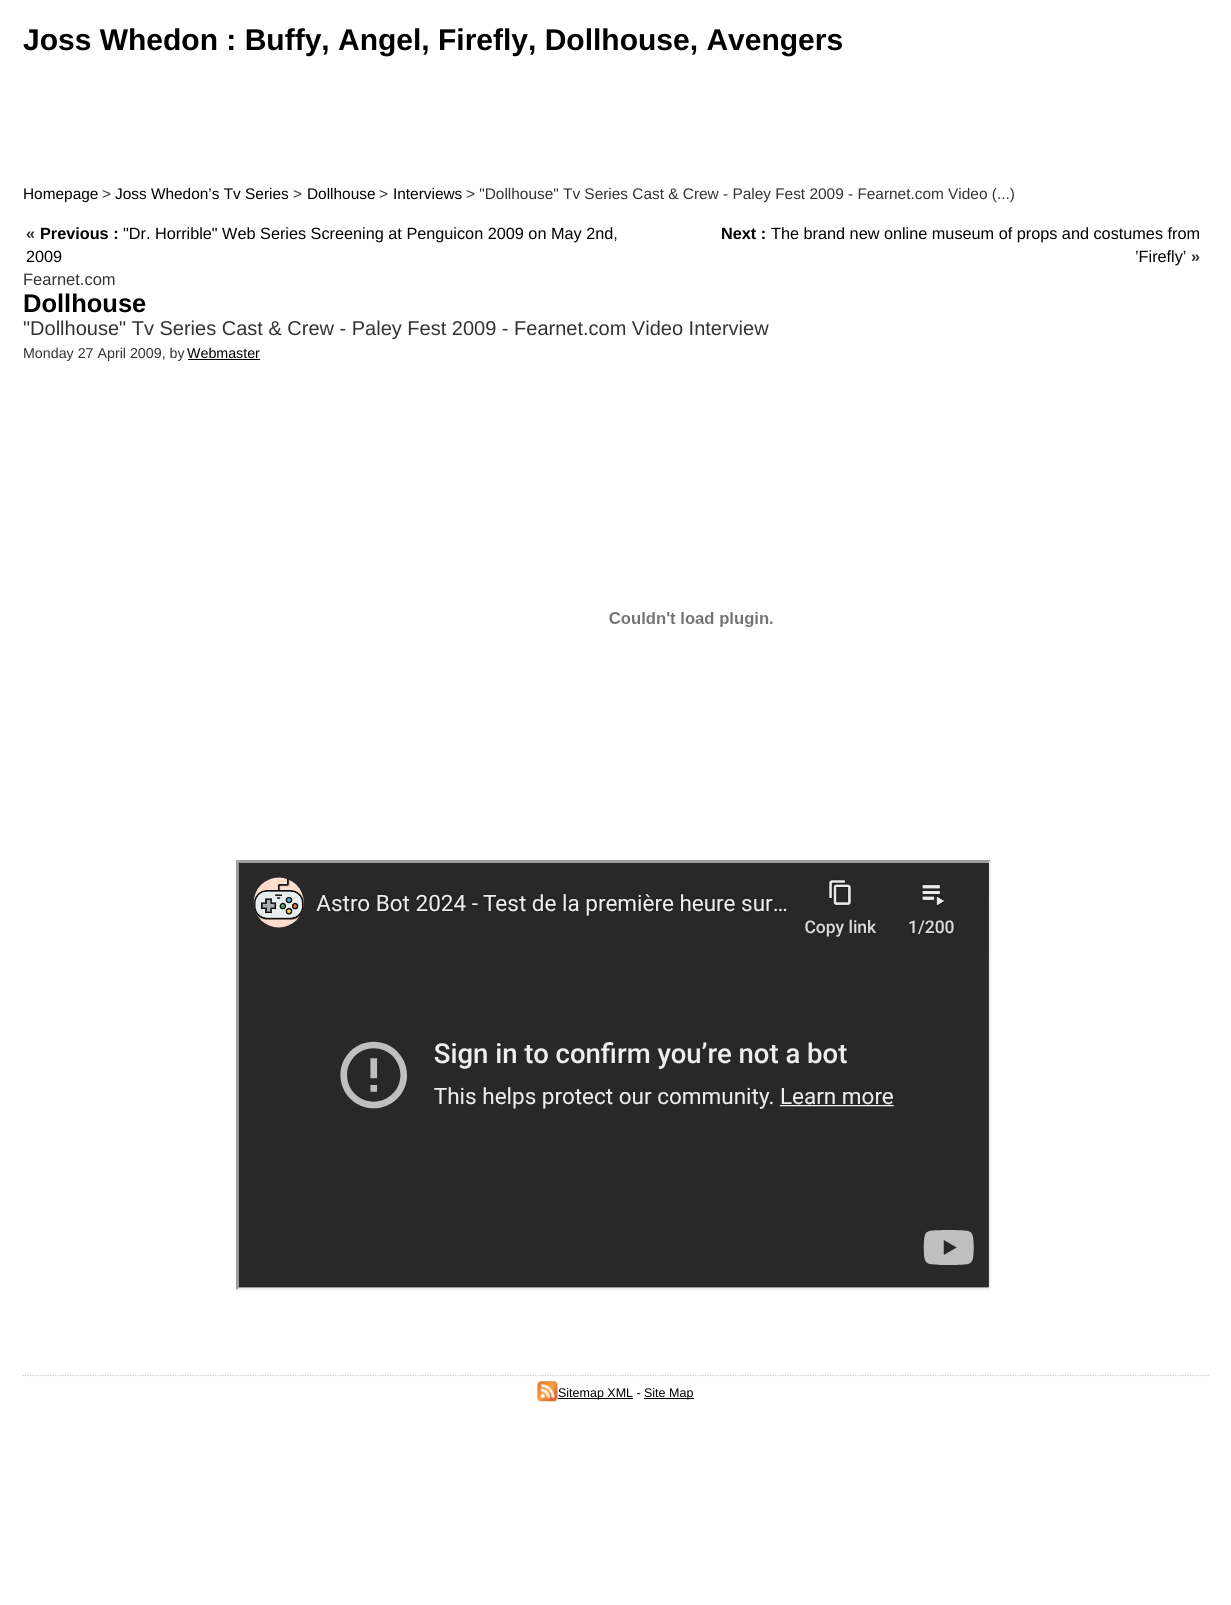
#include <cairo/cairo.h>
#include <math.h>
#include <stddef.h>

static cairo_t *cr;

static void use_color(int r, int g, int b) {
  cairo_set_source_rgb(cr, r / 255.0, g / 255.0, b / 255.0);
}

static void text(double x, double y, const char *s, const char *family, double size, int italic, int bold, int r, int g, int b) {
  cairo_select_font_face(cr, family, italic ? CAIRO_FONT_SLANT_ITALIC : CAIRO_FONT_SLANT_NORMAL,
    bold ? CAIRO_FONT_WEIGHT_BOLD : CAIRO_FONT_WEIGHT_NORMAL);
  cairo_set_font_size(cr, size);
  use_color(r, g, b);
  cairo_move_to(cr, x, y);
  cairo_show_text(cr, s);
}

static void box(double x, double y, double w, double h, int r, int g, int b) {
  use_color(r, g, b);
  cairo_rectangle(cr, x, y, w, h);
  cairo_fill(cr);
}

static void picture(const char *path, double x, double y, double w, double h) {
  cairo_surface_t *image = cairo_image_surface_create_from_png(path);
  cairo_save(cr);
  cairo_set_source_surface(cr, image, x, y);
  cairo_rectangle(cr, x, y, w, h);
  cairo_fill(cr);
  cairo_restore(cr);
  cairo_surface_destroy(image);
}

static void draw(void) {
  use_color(255, 255, 255);
  cairo_paint(cr);
  box(188, 359, 72, 1, 0, 0, 0);
  picture("img_01.png", 609, 612, 164, 15);
  use_color(159, 159, 159);
  cairo_new_path(cr);
  cairo_move_to(cr, 236, 860);
  cairo_line_to(cr, 991, 860);
  cairo_line_to(cr, 989, 862);
  cairo_line_to(cr, 239, 862);
  cairo_close_path(cr);
  cairo_fill(cr);
  use_color(238, 238, 238);
  cairo_new_path(cr);
  cairo_move_to(cr, 991, 860);
  cairo_line_to(cr, 991, 1290);
  cairo_line_to(cr, 989, 1288);
  cairo_line_to(cr, 989, 862);
  cairo_close_path(cr);
  cairo_fill(cr);
  cairo_new_path(cr);
  cairo_move_to(cr, 991, 1290);
  cairo_line_to(cr, 236, 1290);
  cairo_line_to(cr, 239, 1288);
  cairo_line_to(cr, 989, 1288);
  cairo_close_path(cr);
  cairo_fill(cr);
  use_color(159, 159, 159);
  cairo_new_path(cr);
  cairo_move_to(cr, 236, 1290);
  cairo_line_to(cr, 236, 860);
  cairo_line_to(cr, 239, 862);
  cairo_line_to(cr, 239, 1288);
  cairo_close_path(cr);
  cairo_fill(cr);
  picture("img_02.png", 238, 862, 751, 426);
  cairo_new_path(cr);
  cairo_move_to(cr, 22.5, 1375.5);
  cairo_line_to(cr, 1209, 1375.5);
  use_color(204, 204, 204);
  cairo_set_line_width(cr, 1.2);
  cairo_set_dash(cr, (double[]){1.25, 1.25}, 2, 0);
  cairo_stroke(cr);
  picture("img_03.png", 537, 1381, 21, 21);
  box(558, 1398, 75, 1, 0, 0, 0);
  box(644, 1398, 50, 1, 0, 0, 0);
  text(23, 50, "Joss Whedon : Buffy, Angel, Firefly, Dollhouse, Avengers", "Liberation Sans", 30, 0, 1, 0, 0, 0);
  text(23, 199, "Homepage", "Liberation Sans", 15.4, 0, 0, 0, 0, 0);
  text(102, 199, ">", "Liberation Sans", 15.4, 0, 0, 51, 51, 51);
  text(115, 199, "Joss Whedon’s Tv Series", "Liberation Sans", 15.4, 0, 0, 0, 0, 0);
  text(293, 199, ">", "Liberation Sans", 15.4, 0, 0, 51, 51, 51);
  text(307, 199, "Dollhouse", "Liberation Sans", 15.4, 0, 0, 0, 0, 0);
  text(379, 199, ">", "Liberation Sans", 15.4, 0, 0, 51, 51, 51);
  text(393, 199, "Interviews", "Liberation Sans", 15.4, 0, 0, 0, 0, 0);
  text(466, 199, "> \"Dollhouse\" Tv Series Cast & Crew - Paley Fest 2009 - Fearnet.com Video (...)", "Liberation Sans", 15.4, 0, 0, 51, 51, 51);
  text(26, 239, "«", "Liberation Sans", 16.25, 0, 1, 51, 51, 51);
  text(40, 239, "Previous :", "Liberation Sans", 16.25, 0, 1, 0, 0, 0);
  text(123, 239, "\"Dr. Horrible\" Web Series Screening at Penguicon 2009 on May 2nd,", "Liberation Sans", 16.25, 0, 0, 0, 0, 0);
  text(26, 262, "2009", "Liberation Sans", 16.25, 0, 0, 0, 0, 0);
  text(721, 239, "Next :", "Liberation Sans", 16.25, 0, 1, 0, 0, 0);
  text(771, 239, "The brand new online museum of props and costumes from", "Liberation Sans", 16.25, 0, 0, 0, 0, 0);
  text(1135, 262, "’Firefly’", "Liberation Sans", 16.25, 0, 0, 0, 0, 0);
  text(1191, 262, "»", "Liberation Sans", 16.25, 0, 1, 51, 51, 51);
  text(23, 285, "Fearnet.com", "Liberation Sans", 16.5, 0, 0, 51, 51, 51);
  text(23, 312, "Dollhouse", "Liberation Sans", 25.5, 0, 1, 0, 0, 0);
  text(23, 335, "\"Dollhouse\" Tv Series Cast & Crew - Paley Fest 2009 - Fearnet.com Video Interview", "Liberation Sans", 20, 0, 0, 51, 51, 51);
  text(23, 358, "Monday 27 April 2009, by", "Liberation Sans", 14.25, 0, 0, 51, 51, 51);
  text(187, 358, "Webmaster", "Liberation Sans", 14.25, 0, 0, 0, 0, 0);
  text(558, 1397, "Sitemap XML -", "Liberation Sans", 12.5, 0, 0, 0, 0, 0);
  text(644, 1397, "Site Map", "Liberation Sans", 12.5, 0, 0, 0, 0, 0);
}

int main(void) {
  cairo_surface_t *surface = cairo_image_surface_create(CAIRO_FORMAT_RGB24, 1231, 1605);
  cr = cairo_create(surface);
  cairo_font_options_t *options = cairo_font_options_create();
  cairo_font_options_set_hint_metrics(options, CAIRO_HINT_METRICS_OFF);
  cairo_font_options_set_hint_style(options, CAIRO_HINT_STYLE_NONE);
  cairo_set_font_options(cr, options);
  cairo_set_miter_limit(cr, 4);
  draw();
  cairo_surface_write_to_png(surface, "out.png");
  cairo_font_options_destroy(options);
  cairo_destroy(cr);
  cairo_surface_destroy(surface);
  return 0;
}
